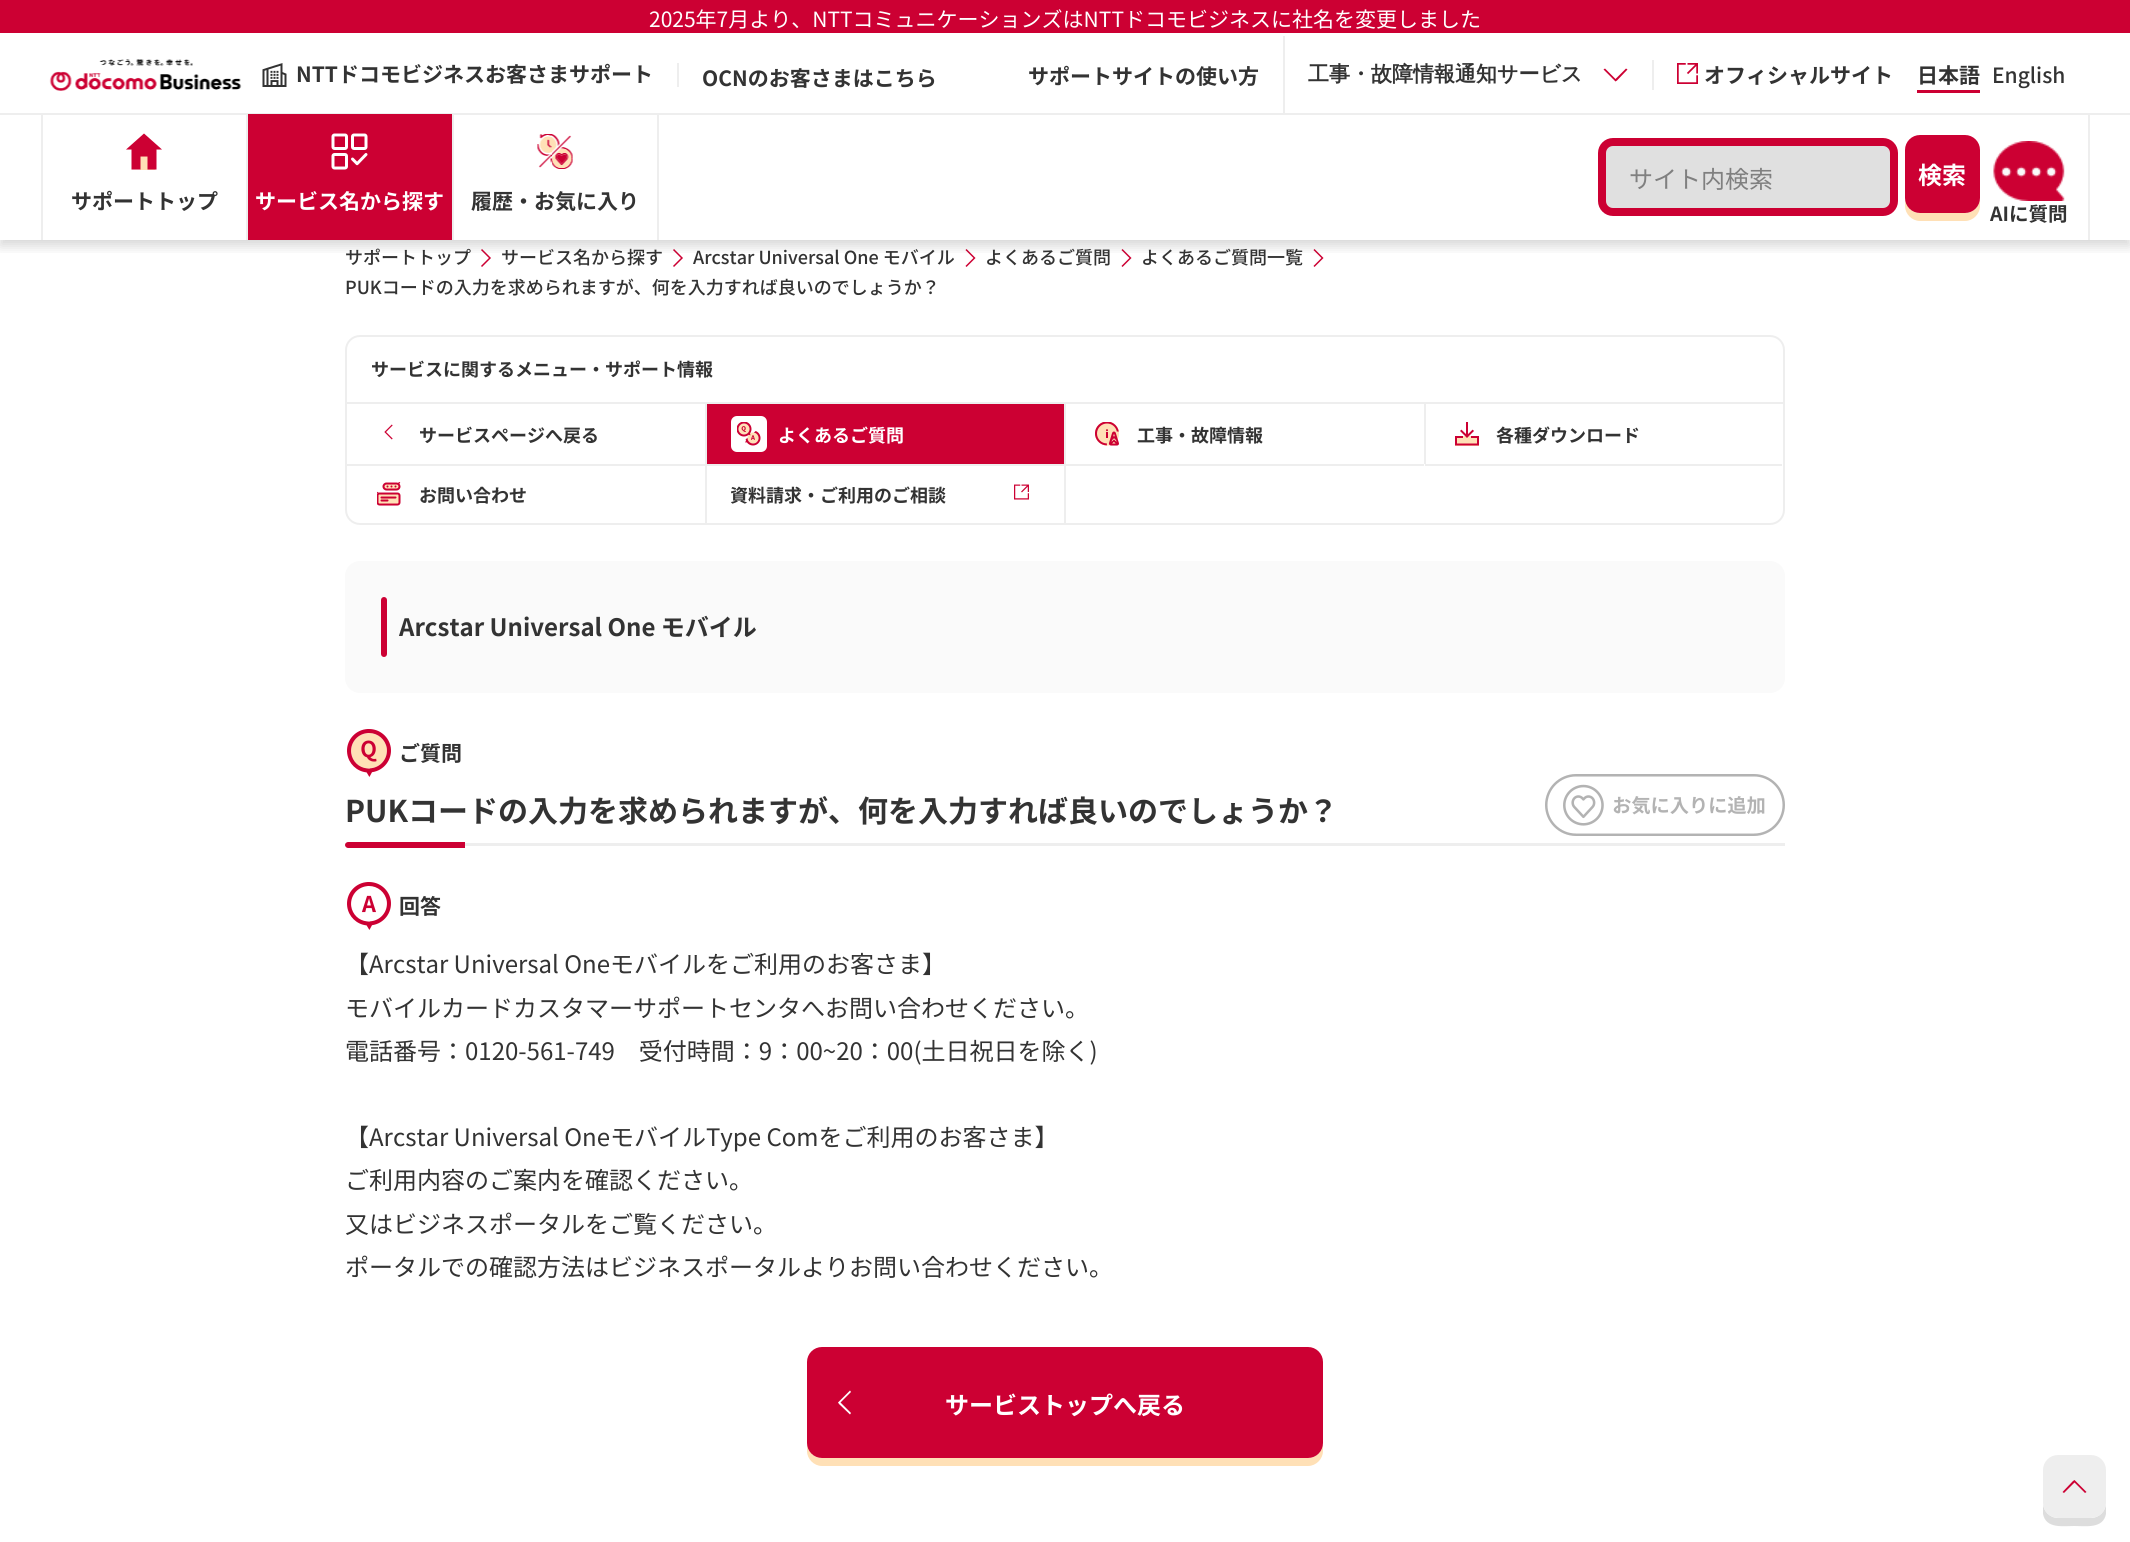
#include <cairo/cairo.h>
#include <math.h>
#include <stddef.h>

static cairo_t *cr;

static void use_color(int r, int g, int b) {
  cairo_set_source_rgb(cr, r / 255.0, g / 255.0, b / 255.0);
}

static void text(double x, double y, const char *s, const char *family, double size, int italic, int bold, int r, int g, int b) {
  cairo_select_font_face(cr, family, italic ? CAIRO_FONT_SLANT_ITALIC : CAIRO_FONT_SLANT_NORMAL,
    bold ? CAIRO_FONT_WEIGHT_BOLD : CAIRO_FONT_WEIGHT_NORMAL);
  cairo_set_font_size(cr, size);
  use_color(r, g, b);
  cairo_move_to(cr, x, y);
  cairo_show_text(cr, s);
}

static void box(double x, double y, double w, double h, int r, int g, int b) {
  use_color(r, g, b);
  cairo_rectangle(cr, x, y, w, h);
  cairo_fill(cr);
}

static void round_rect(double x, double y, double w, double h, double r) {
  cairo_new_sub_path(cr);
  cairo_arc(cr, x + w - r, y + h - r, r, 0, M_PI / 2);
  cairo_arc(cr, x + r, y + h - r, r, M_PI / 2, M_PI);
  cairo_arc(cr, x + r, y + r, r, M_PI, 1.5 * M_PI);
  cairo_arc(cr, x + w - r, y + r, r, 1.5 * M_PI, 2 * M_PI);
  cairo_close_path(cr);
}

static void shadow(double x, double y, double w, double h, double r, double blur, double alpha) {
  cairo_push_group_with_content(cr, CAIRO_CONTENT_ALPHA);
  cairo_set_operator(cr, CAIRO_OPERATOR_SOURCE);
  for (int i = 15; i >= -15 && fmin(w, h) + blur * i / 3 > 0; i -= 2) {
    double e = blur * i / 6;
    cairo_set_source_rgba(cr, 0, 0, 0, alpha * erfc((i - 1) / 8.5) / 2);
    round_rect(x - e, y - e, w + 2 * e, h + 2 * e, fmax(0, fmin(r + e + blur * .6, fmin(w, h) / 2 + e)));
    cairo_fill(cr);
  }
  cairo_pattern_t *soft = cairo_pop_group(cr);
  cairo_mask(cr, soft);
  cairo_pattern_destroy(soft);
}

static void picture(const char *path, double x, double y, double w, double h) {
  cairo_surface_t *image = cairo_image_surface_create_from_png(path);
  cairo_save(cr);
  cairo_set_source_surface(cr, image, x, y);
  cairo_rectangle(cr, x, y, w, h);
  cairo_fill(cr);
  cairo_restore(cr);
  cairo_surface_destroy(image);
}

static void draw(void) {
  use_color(255, 255, 255);
  cairo_paint(cr);
  picture("img_07.png", 481, 249, 10, 18);
  picture("img_07.png", 673, 249, 10, 18);
  picture("img_08.png", 965, 249, 11, 18);
  picture("img_08.png", 1121, 249, 11, 18);
  picture("img_08.png", 1313, 249, 11, 18);
  cairo_save(cr);
  cairo_rectangle(cr, 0, 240, 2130, 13);
  cairo_clip(cr);
  use_color(0, 0, 0);
  shadow(0, 6, 2130, 240, 0, 6, 0.16);
  cairo_restore(cr);
  box(0, 0, 2130, 33, 204, 0, 51);
  picture("img_01.png", 49, 59, 193, 32);
  picture("img_02.png", 262, 63, 25, 24);
  box(677, 63, 2, 24, 238, 238, 238);
  box(0, 113, 2130, 2, 238, 238, 238);
  box(1283, 36, 2, 78, 238, 238, 238);
  use_color(204, 0, 51);
  cairo_new_path(cr);
  cairo_move_to(cr, 1617, 80.5);
  cairo_line_to(cr, 1627.5, 69.5);
  cairo_line_to(cr, 1626, 68.5);
  cairo_line_to(cr, 1615.5, 79);
  cairo_line_to(cr, 1605, 68.5);
  cairo_line_to(cr, 1603.5, 69.5);
  cairo_line_to(cr, 1615.5, 81.5);
  cairo_close_path(cr);
  cairo_fill(cr);
  box(1652, 60, 2, 30, 238, 238, 238);
  picture("img_03.png", 1677, 63, 21, 21);
  box(1917, 90, 63, 3, 204, 0, 51);
  box(246, 114, 2, 126, 238, 238, 238);
  box(41, 114, 2, 126, 238, 238, 238);
  box(140, 156, 15, 14, 255, 224, 182);
  use_color(204, 0, 51);
  cairo_new_path(cr);
  cairo_move_to(cr, 140.5, 169.5);
  cairo_line_to(cr, 140.5, 156.5);
  cairo_line_to(cr, 147.5, 156.5);
  cairo_line_to(cr, 147.5, 169.5);
  cairo_line_to(cr, 156.5, 169.5);
  cairo_line_to(cr, 156.5, 149.5);
  cairo_line_to(cr, 162, 149.5);
  cairo_line_to(cr, 144, 133.5);
  cairo_line_to(cr, 126, 149.5);
  cairo_line_to(cr, 131.5, 149.5);
  cairo_line_to(cr, 131.5, 169.5);
  cairo_close_path(cr);
  cairo_fill(cr);
  box(452, 114, 2, 126, 238, 238, 238);
  box(248, 114, 204, 126, 204, 0, 51);
  picture("img_04.png", 331, 133, 37, 37);
  box(657, 114, 2, 126, 238, 238, 238);
  picture("img_05.png", 537, 134, 36, 35);
  box(2088, 114, 2, 126, 238, 238, 238);
  use_color(224, 224, 224);
  round_rect(1602, 142, 292, 70, 11);
  cairo_fill_preserve(cr);
  use_color(204, 0, 51);
  cairo_set_line_width(cr, 8);
  cairo_stroke(cr);
  use_color(255, 224, 182);
  cairo_new_path(cr);
  cairo_move_to(cr, 1905, 198);
  cairo_line_to(cr, 1905, 206);
  cairo_curve_to(cr, 1905, 214, 1912, 221, 1920, 221);
  cairo_line_to(cr, 1965, 221);
  cairo_curve_to(cr, 1973, 221, 1980, 214, 1980, 206);
  cairo_line_to(cr, 1980, 198);
  cairo_curve_to(cr, 1980, 206, 1973, 213, 1965, 213);
  cairo_line_to(cr, 1920, 213);
  cairo_curve_to(cr, 1912, 213, 1905, 206, 1905, 198);
  cairo_close_path(cr);
  cairo_fill(cr);
  use_color(204, 0, 51);
  round_rect(1906, 136, 73, 76, 14);
  cairo_fill_preserve(cr);
  cairo_set_line_width(cr, 2);
  cairo_stroke(cr);
  picture("img_06.png", 1993, 141, 72, 60);
  round_rect(346, 336, 1438, 188, 14);
  use_color(238, 238, 238);
  cairo_stroke(cr);
  box(347, 402, 1437, 2, 238, 238, 238);
  box(705, 404, 2, 120, 238, 238, 238);
  picture("img_09.png", 384, 424, 9, 16);
  box(347, 464, 358, 2, 238, 238, 238);
  box(1064, 404, 2, 60, 238, 238, 238);
  box(707, 404, 357, 60, 204, 0, 51);
  use_color(255, 255, 255);
  round_rect(731, 416, 36, 36, 6);
  cairo_fill(cr);
  picture("img_10.png", 737, 422, 24, 24);
  box(707, 464, 357, 2, 238, 238, 238);
  box(1424, 404, 2, 60, 238, 238, 238);
  picture("img_11.png", 1095, 422, 24, 24);
  box(1065, 464, 359, 2, 238, 238, 238);
  picture("img_12.png", 1455, 422, 24, 24);
  box(1425, 464, 357, 2, 238, 238, 238);
  picture("img_13.png", 377, 482, 24, 24);
  box(1064, 464, 2, 60, 238, 238, 238);
  picture("img_14.png", 1014, 484, 15, 16);
  use_color(250, 250, 250);
  round_rect(345, 561, 1440, 132, 15);
  cairo_fill(cr);
  use_color(204, 0, 51);
  round_rect(381, 597, 6, 60, 3);
  cairo_fill(cr);
  picture("img_15.png", 347, 729, 44, 48);
  box(345, 843, 1440, 3, 238, 238, 238);
  use_color(204, 0, 51);
  cairo_new_path(cr);
  cairo_move_to(cr, 348, 842);
  cairo_line_to(cr, 465, 842);
  cairo_line_to(cr, 465, 848);
  cairo_line_to(cr, 348, 848);
  cairo_curve_to(cr, 346.5, 848, 345, 846.5, 345, 845);
  cairo_curve_to(cr, 345, 843.5, 346.5, 842, 348, 842);
  cairo_close_path(cr);
  cairo_fill(cr);
  picture("img_16.png", 1545, 774, 240, 62);
  picture("img_17.png", 347, 882, 44, 48);
  use_color(255, 224, 182);
  cairo_new_path(cr);
  cairo_move_to(cr, 807, 1443);
  cairo_line_to(cr, 807, 1451);
  cairo_curve_to(cr, 807, 1459, 814, 1466, 822, 1466);
  cairo_line_to(cr, 1308, 1466);
  cairo_curve_to(cr, 1316, 1466, 1323, 1459, 1323, 1451);
  cairo_line_to(cr, 1323, 1443);
  cairo_curve_to(cr, 1323, 1451, 1316, 1458, 1308, 1458);
  cairo_line_to(cr, 822, 1458);
  cairo_curve_to(cr, 814, 1458, 807, 1451, 807, 1443);
  cairo_close_path(cr);
  cairo_fill(cr);
  use_color(204, 0, 51);
  round_rect(808, 1348, 514, 109, 14);
  cairo_fill_preserve(cr);
  cairo_stroke(cr);
  use_color(255, 255, 255);
  cairo_new_path(cr);
  cairo_move_to(cr, 839, 1404);
  cairo_line_to(cr, 850, 1414.5);
  cairo_line_to(cr, 851, 1413);
  cairo_line_to(cr, 840.5, 1402.5);
  cairo_line_to(cr, 851, 1392);
  cairo_line_to(cr, 850, 1390.5);
  cairo_line_to(cr, 838, 1402.5);
  cairo_close_path(cr);
  cairo_fill(cr);
  use_color(221, 221, 221);
  cairo_new_path(cr);
  cairo_move_to(cr, 2043, 1503);
  cairo_line_to(cr, 2043, 1514);
  cairo_curve_to(cr, 2046, 1529, 2063, 1526, 2074, 1526);
  cairo_curve_to(cr, 2086, 1526, 2103, 1529, 2106, 1514);
  cairo_line_to(cr, 2106, 1503);
  cairo_curve_to(cr, 2106, 1511, 2099, 1518, 2091, 1518);
  cairo_line_to(cr, 2058, 1518);
  cairo_curve_to(cr, 2050, 1518, 2043, 1511, 2043, 1503);
  cairo_close_path(cr);
  cairo_fill(cr);
  use_color(238, 238, 238);
  round_rect(2044, 1456, 61, 61, 14);
  cairo_fill_preserve(cr);
  cairo_stroke(cr);
  use_color(204, 0, 51);
  cairo_new_path(cr);
  cairo_move_to(cr, 2073, 1481);
  cairo_line_to(cr, 2062.5, 1492);
  cairo_line_to(cr, 2064, 1493);
  cairo_line_to(cr, 2074.5, 1482.5);
  cairo_line_to(cr, 2085, 1493);
  cairo_line_to(cr, 2086.5, 1492);
  cairo_line_to(cr, 2074.5, 1480);
  cairo_close_path(cr);
  cairo_fill(cr);
  text(649, 27, "2025年7月より、NTTコミュニケーションズはNTTドコモビジネスに社名を変更しました", "Noto Sans JP", 21, 0, 0, 255, 255, 255);
  text(296, 82, "NTTドコモビジネスお客さまサポート", "Noto Sans JP", 21, 0, 1, 51, 51, 51);
  text(702, 86, "OCNのお客さまはこちら", "Noto Sans JP", 21, 0, 1, 51, 51, 51);
  text(1028, 84, "サポートサイトの使い方", "Noto Sans JP", 21, 0, 1, 51, 51, 51);
  text(1308, 81, "工事・故障情報通知サービス", "WenQuanYi Zen Hei", 21, 0, 1, 51, 51, 51);
  text(1704, 83, "オフィシャルサイト", "Noto Sans JP", 21, 0, 1, 51, 51, 51);
  text(1917, 83, "日本語", "Noto Sans JP", 21, 0, 1, 51, 51, 51);
  text(1992, 83, "English", "Noto Sans JP Medium", 21, 0, 0, 51, 51, 51);
  text(71, 209, "サポートトップ", "Noto Sans JP", 21, 0, 1, 51, 51, 51);
  text(255, 209, "サービス名から探す", "Noto Sans JP", 21, 0, 1, 255, 255, 255);
  text(471, 209, "履歴・お気に入り", "Noto Sans JP", 21, 0, 1, 51, 51, 51);
  text(1629, 188, "サイト内検索", "Noto Sans JP", 24, 0, 0, 128, 128, 128);
  text(1918, 184, "検索", "Noto Sans JP", 24, 0, 1, 255, 255, 255);
  text(1990, 221, "AIに質問", "Noto Sans JP", 19.5, 0, 1, 51, 51, 51);
  text(345, 264, "サポートトップ", "Noto Sans JP Medium", 18, 0, 0, 51, 51, 51);
  text(501, 264, "サービス名から探す", "Noto Sans JP Medium", 18, 0, 0, 51, 51, 51);
  text(693, 264, "Arcstar Universal One モバイル", "Noto Sans JP Medium", 18, 0, 0, 51, 51, 51);
  text(985, 264, "よくあるご質問", "Noto Sans JP Medium", 18, 0, 0, 51, 51, 51);
  text(1141, 264, "よくあるご質問一覧", "Noto Sans JP Medium", 18, 0, 0, 51, 51, 51);
  text(345, 294, "PUKコードの入力を求められますが、何を入力すれば良いのでしょうか？", "Noto Sans JP Medium", 18, 0, 0, 51, 51, 51);
  text(371, 376, "サービスに関するメニュー・サポート情報", "Noto Sans JP", 18, 0, 1, 51, 51, 51);
  text(419, 442, "サービスページへ戻る", "Noto Sans JP", 18, 0, 1, 51, 51, 51);
  text(778, 442, "よくあるご質問", "Noto Sans JP", 18, 0, 1, 255, 255, 255);
  text(1137, 442, "工事・故障情報", "Noto Sans JP", 18, 0, 1, 51, 51, 51);
  text(1496, 442, "各種ダウンロード", "Noto Sans JP", 18, 0, 1, 51, 51, 51);
  text(419, 502, "お問い合わせ", "Noto Sans JP", 18, 0, 1, 51, 51, 51);
  cairo_save(cr);
  cairo_rectangle(cr, 731, 479, 261, 30);
  cairo_clip(cr);
  text(730, 502, "資料請求・ご利用のご相談", "Noto Sans JP", 18, 0, 1, 51, 51, 51);
  cairo_restore(cr);
  text(399, 636, "Arcstar Universal One モバイル", "Noto Sans JP", 24, 0, 1, 51, 51, 51);
  text(399, 761, "ご質問", "Noto Sans JP", 21, 0, 1, 51, 51, 51);
  text(345, 822, "PUKコードの入力を求められますが、何を入力すれば良いのでしょうか？", "Noto Sans JP", 30, 0, 1, 51, 51, 51);
  text(399, 914, "回答", "Noto Sans JP", 21, 0, 1, 51, 51, 51);
  text(345, 973, "【Arcstar Universal Oneモバイルをご利用のお客さま】", "Noto Sans JP", 24, 0, 0, 51, 51, 51);
  text(345, 1017, "モバイルカードカスタマーサポートセンタへお問い合わせください。", "Noto Sans JP", 24, 0, 0, 51, 51, 51);
  text(345, 1060, "電話番号：0120-561-749　受付時間：9：00~20：00(土日祝日を除く)", "Noto Sans JP", 24, 0, 0, 51, 51, 51);
  text(345, 1146, "【Arcstar Universal OneモバイルType Comをご利用のお客さま】", "Noto Sans JP", 24, 0, 0, 51, 51, 51);
  text(345, 1189, "ご利用内容のご案内を確認ください。", "Noto Sans JP", 24, 0, 0, 51, 51, 51);
  text(345, 1233, "又はビジネスポータルをご覧ください。", "Noto Sans JP", 24, 0, 0, 51, 51, 51);
  text(345, 1276, "ポータルでの確認方法はビジネスポータルよりお問い合わせください。", "Noto Sans JP", 24, 0, 0, 51, 51, 51);
  text(945, 1414, "サービストップへ戻る", "Noto Sans JP", 24, 0, 1, 255, 255, 255);
}

int main(void) {
  cairo_surface_t *surface = cairo_image_surface_create(CAIRO_FORMAT_RGB24, 2130, 1542);
  cr = cairo_create(surface);
  cairo_font_options_t *options = cairo_font_options_create();
  cairo_font_options_set_hint_metrics(options, CAIRO_HINT_METRICS_OFF);
  cairo_font_options_set_hint_style(options, CAIRO_HINT_STYLE_NONE);
  cairo_set_font_options(cr, options);
  cairo_set_miter_limit(cr, 4);
  draw();
  cairo_surface_write_to_png(surface, "out.png");
  cairo_font_options_destroy(options);
  cairo_destroy(cr);
  cairo_surface_destroy(surface);
  return 0;
}
